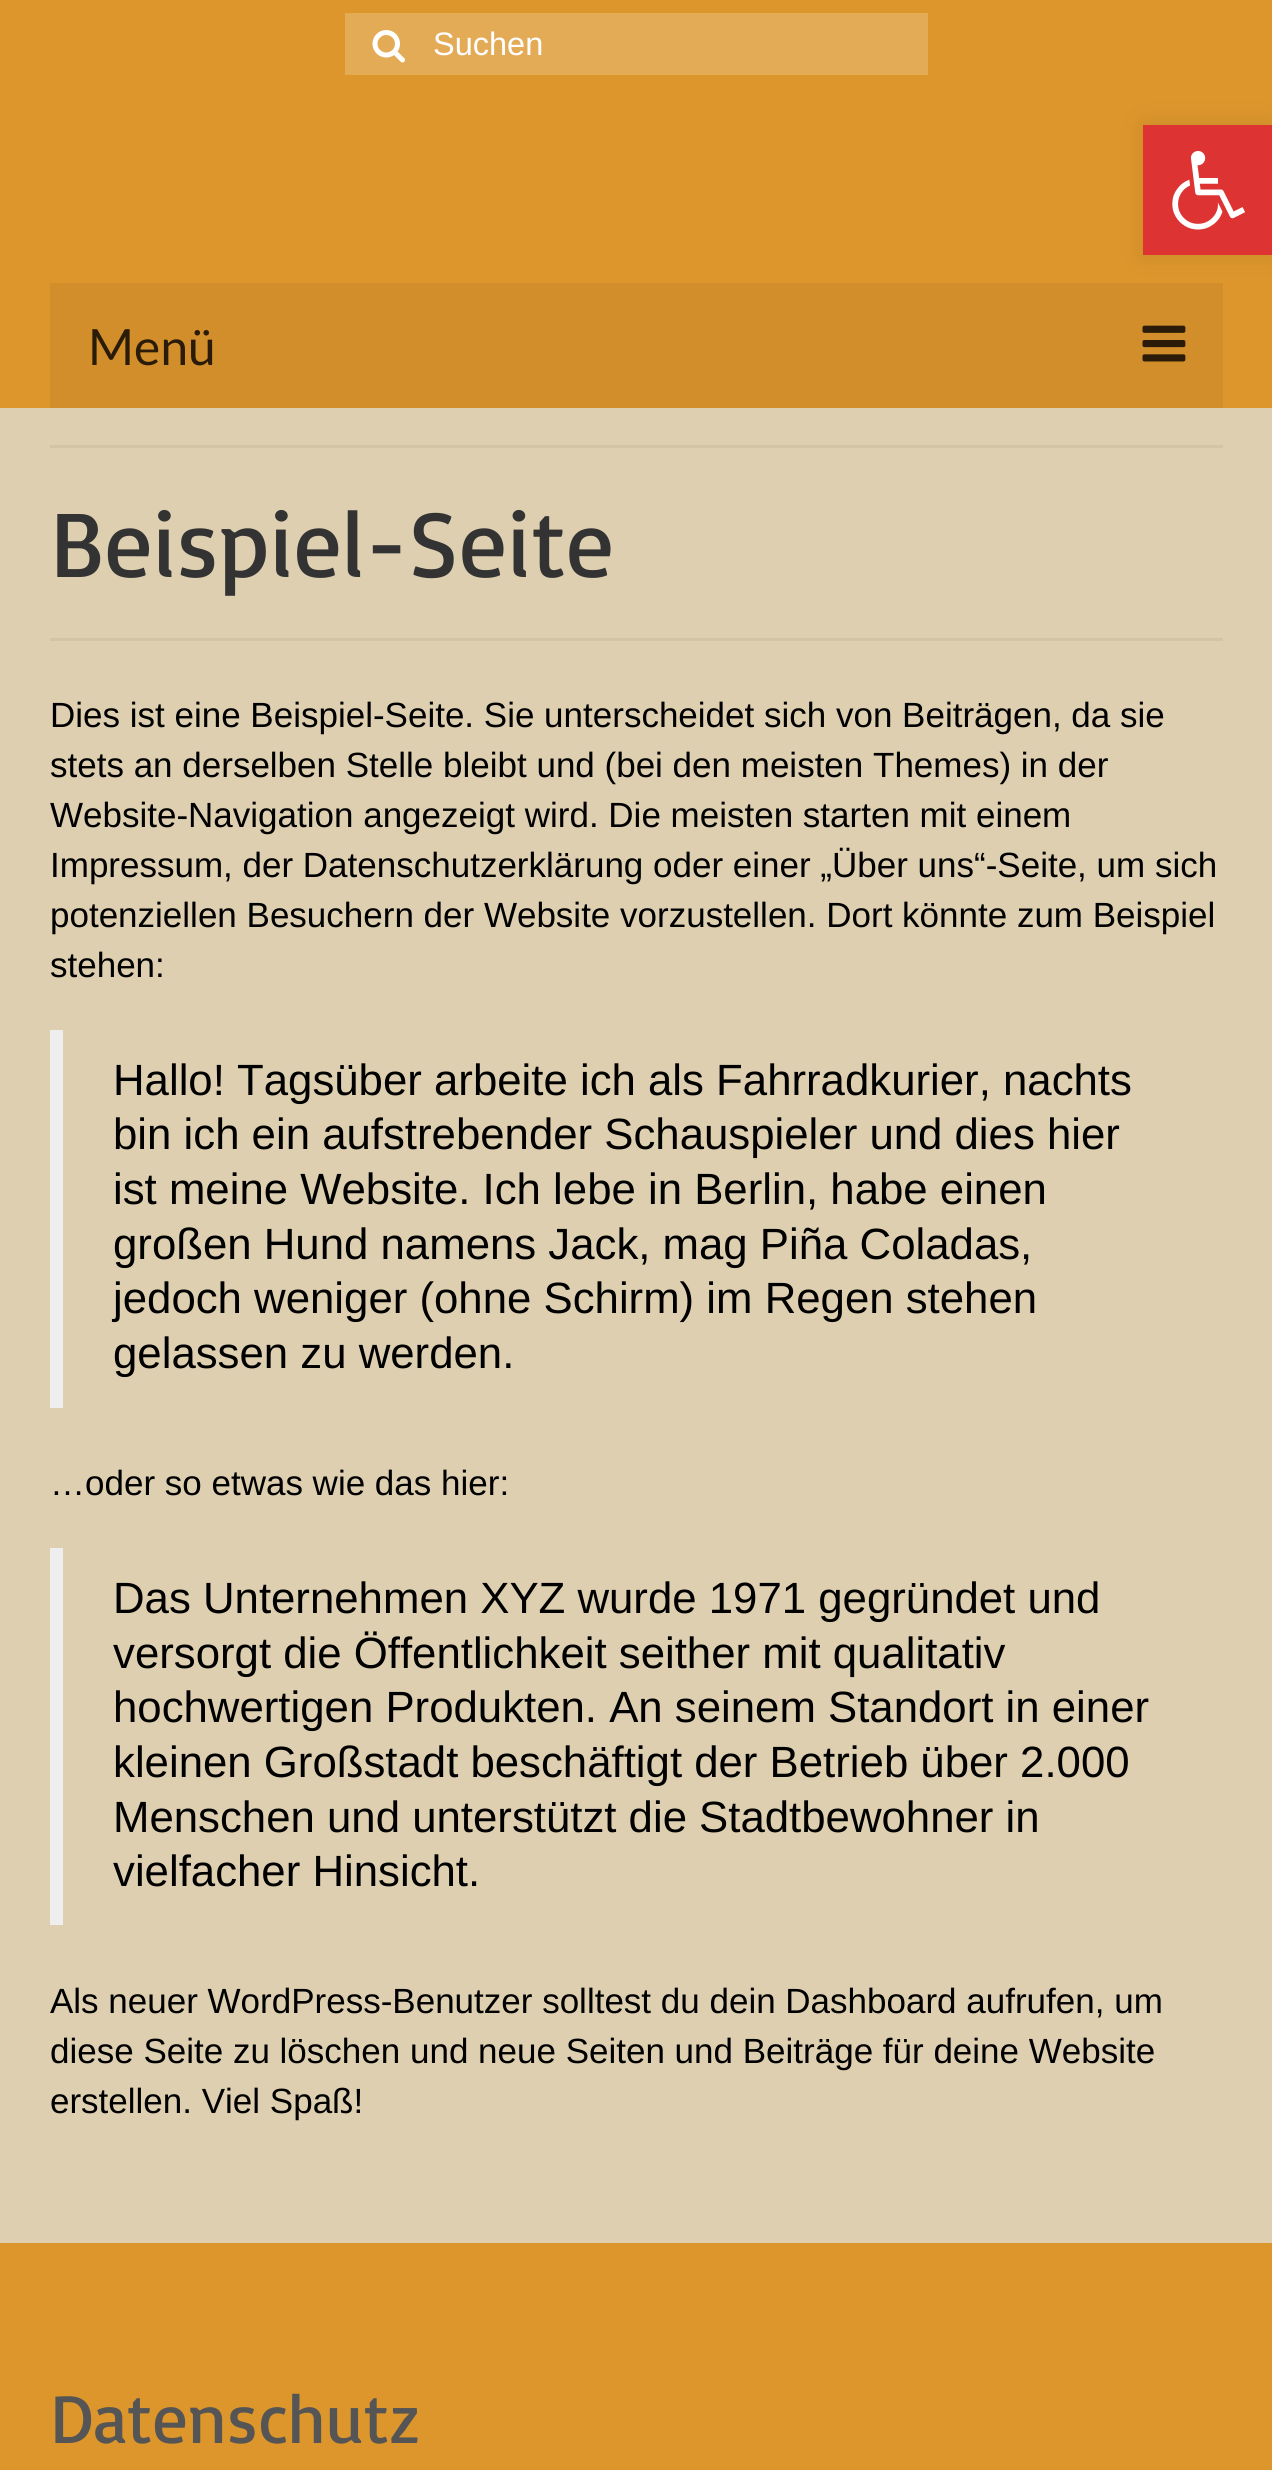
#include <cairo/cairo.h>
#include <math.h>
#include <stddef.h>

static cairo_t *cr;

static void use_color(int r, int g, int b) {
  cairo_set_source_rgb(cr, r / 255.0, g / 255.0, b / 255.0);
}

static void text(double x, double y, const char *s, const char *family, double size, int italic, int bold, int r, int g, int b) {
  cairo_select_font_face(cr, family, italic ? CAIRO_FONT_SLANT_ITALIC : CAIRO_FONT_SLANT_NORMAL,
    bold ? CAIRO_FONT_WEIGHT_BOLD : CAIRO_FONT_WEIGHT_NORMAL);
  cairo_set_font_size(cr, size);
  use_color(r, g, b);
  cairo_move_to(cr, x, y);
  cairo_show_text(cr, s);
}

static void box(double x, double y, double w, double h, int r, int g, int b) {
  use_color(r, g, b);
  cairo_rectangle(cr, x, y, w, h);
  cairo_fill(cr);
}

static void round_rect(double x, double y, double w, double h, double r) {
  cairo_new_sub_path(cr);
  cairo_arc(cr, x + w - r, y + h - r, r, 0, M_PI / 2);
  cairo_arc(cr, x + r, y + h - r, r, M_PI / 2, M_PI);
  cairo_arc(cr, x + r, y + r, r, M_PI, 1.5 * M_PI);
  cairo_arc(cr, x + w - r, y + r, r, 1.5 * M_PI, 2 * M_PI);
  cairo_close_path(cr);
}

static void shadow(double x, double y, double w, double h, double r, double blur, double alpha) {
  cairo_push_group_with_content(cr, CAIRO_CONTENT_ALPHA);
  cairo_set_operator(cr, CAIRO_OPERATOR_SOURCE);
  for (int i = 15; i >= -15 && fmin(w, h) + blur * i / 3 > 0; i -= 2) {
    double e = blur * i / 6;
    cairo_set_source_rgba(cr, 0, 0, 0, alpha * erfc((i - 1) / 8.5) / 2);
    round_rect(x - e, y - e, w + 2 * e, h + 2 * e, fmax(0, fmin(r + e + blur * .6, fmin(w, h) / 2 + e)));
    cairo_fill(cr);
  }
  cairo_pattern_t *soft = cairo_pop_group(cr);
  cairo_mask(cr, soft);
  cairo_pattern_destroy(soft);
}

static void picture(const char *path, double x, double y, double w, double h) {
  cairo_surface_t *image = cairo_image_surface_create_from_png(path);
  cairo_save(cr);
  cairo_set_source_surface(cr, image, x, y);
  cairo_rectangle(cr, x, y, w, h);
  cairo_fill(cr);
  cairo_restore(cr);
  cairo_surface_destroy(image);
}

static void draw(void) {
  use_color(221, 150, 44);
  cairo_paint(cr);
  box(345, 13, 583, 62, 228, 171, 86);
  picture("img_01.png", 372, 30, 33, 33);
  use_color(0, 0, 0);
  shadow(1143, 125, 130, 130, 0, 12.5, 0.1);
  box(50, 283, 1173, 125, 209, 142, 42);
  picture("img_02.png", 1142, 325, 44, 37);
  box(0, 408, 1272, 1835, 221, 207, 175);
  box(50, 445, 1173, 3, 210, 197, 166);
  box(50, 638, 1173, 3, 210, 197, 166);
  box(50, 1030, 13, 378, 238, 238, 238);
  box(50, 1548, 13, 377, 238, 238, 238);
  box(1143, 125, 129, 130, 221, 51, 51);
  picture("img_03.png", 1172, 151, 73, 79);
  text(433, 55, "Suchen", "Liberation Sans", 32.5, 0, 0, 255, 255, 255);
  text(88, 365, "Menü", "Lato", 50, 0, 0, 42, 28, 8);
  text(50, 577, "Beispiel-Seite", "Basic", 95, 0, 0, 51, 51, 51);
  text(50, 727, "Dies ist eine Beispiel-Seite. Sie unterscheidet sich von Beiträgen, da sie", "Liberation Sans", 35, 0, 0, 0, 0, 0);
  text(50, 777, "stets an derselben Stelle bleibt und (bei den meisten Themes) in der", "Liberation Sans", 35, 0, 0, 0, 0, 0);
  text(50, 827, "Website-Navigation angezeigt wird. Die meisten starten mit einem", "Liberation Sans", 35, 0, 0, 0, 0, 0);
  text(50, 877, "Impressum, der Datenschutzerklärung oder einer „Über uns“-Seite, um sich", "Liberation Sans", 35, 0, 0, 0, 0, 0);
  text(50, 927, "potenziellen Besuchern der Website vorzustellen. Dort könnte zum Beispiel", "Liberation Sans", 35, 0, 0, 0, 0, 0);
  text(50, 977, "stehen:", "Liberation Sans", 35, 0, 0, 0, 0, 0);
  text(113, 1095, "Hallo! Tagsüber arbeite ich als Fahrradkurier, nachts", "Liberation Sans", 43.75, 0, 0, 0, 0, 0);
  text(113, 1149, "bin ich ein aufstrebender Schauspieler und dies hier", "Liberation Sans", 43.75, 0, 0, 0, 0, 0);
  text(113, 1204, "ist meine Website. Ich lebe in Berlin, habe einen", "Liberation Sans", 43.75, 0, 0, 0, 0, 0);
  text(113, 1259, "großen Hund namens Jack, mag Piña Coladas,", "Liberation Sans", 43.75, 0, 0, 0, 0, 0);
  text(113, 1313, "jedoch weniger (ohne Schirm) im Regen stehen", "Liberation Sans", 43.75, 0, 0, 0, 0, 0);
  text(113, 1368, "gelassen zu werden.", "Liberation Sans", 43.75, 0, 0, 0, 0, 0);
  text(50, 1495, "…oder so etwas wie das hier:", "Liberation Sans", 35, 0, 0, 0, 0, 0);
  text(113, 1613, "Das Unternehmen XYZ wurde 1971 gegründet und", "Liberation Sans", 43.75, 0, 0, 0, 0, 0);
  text(113, 1668, "versorgt die Öffentlichkeit seither mit qualitativ", "Liberation Sans", 43.75, 0, 0, 0, 0, 0);
  text(113, 1722, "hochwertigen Produkten. An seinem Standort in einer", "Liberation Sans", 43.75, 0, 0, 0, 0, 0);
  text(113, 1777, "kleinen Großstadt beschäftigt der Betrieb über 2.000", "Liberation Sans", 43.75, 0, 0, 0, 0, 0);
  text(113, 1832, "Menschen und unterstützt die Stadtbewohner in", "Liberation Sans", 43.75, 0, 0, 0, 0, 0);
  text(113, 1886, "vielfacher Hinsicht.", "Liberation Sans", 43.75, 0, 0, 0, 0, 0);
  text(50, 2013, "Als neuer WordPress-Benutzer solltest du dein Dashboard aufrufen, um", "Liberation Sans", 35, 0, 0, 0, 0, 0);
  text(50, 2063, "diese Seite zu löschen und neue Seiten und Beiträge für deine Website", "Liberation Sans", 35, 0, 0, 0, 0, 0);
  text(50, 2113, "erstellen. Viel Spaß!", "Liberation Sans", 35, 0, 0, 0, 0, 0);
  text(50, 2443, "Datenschutz", "Basic", 70, 0, 0, 85, 85, 85);
}

int main(void) {
  cairo_surface_t *surface = cairo_image_surface_create(CAIRO_FORMAT_RGB24, 1272, 2470);
  cr = cairo_create(surface);
  cairo_font_options_t *options = cairo_font_options_create();
  cairo_font_options_set_hint_metrics(options, CAIRO_HINT_METRICS_OFF);
  cairo_font_options_set_hint_style(options, CAIRO_HINT_STYLE_NONE);
  cairo_set_font_options(cr, options);
  cairo_set_miter_limit(cr, 4);
  draw();
  cairo_surface_write_to_png(surface, "out.png");
  cairo_font_options_destroy(options);
  cairo_destroy(cr);
  cairo_surface_destroy(surface);
  return 0;
}
